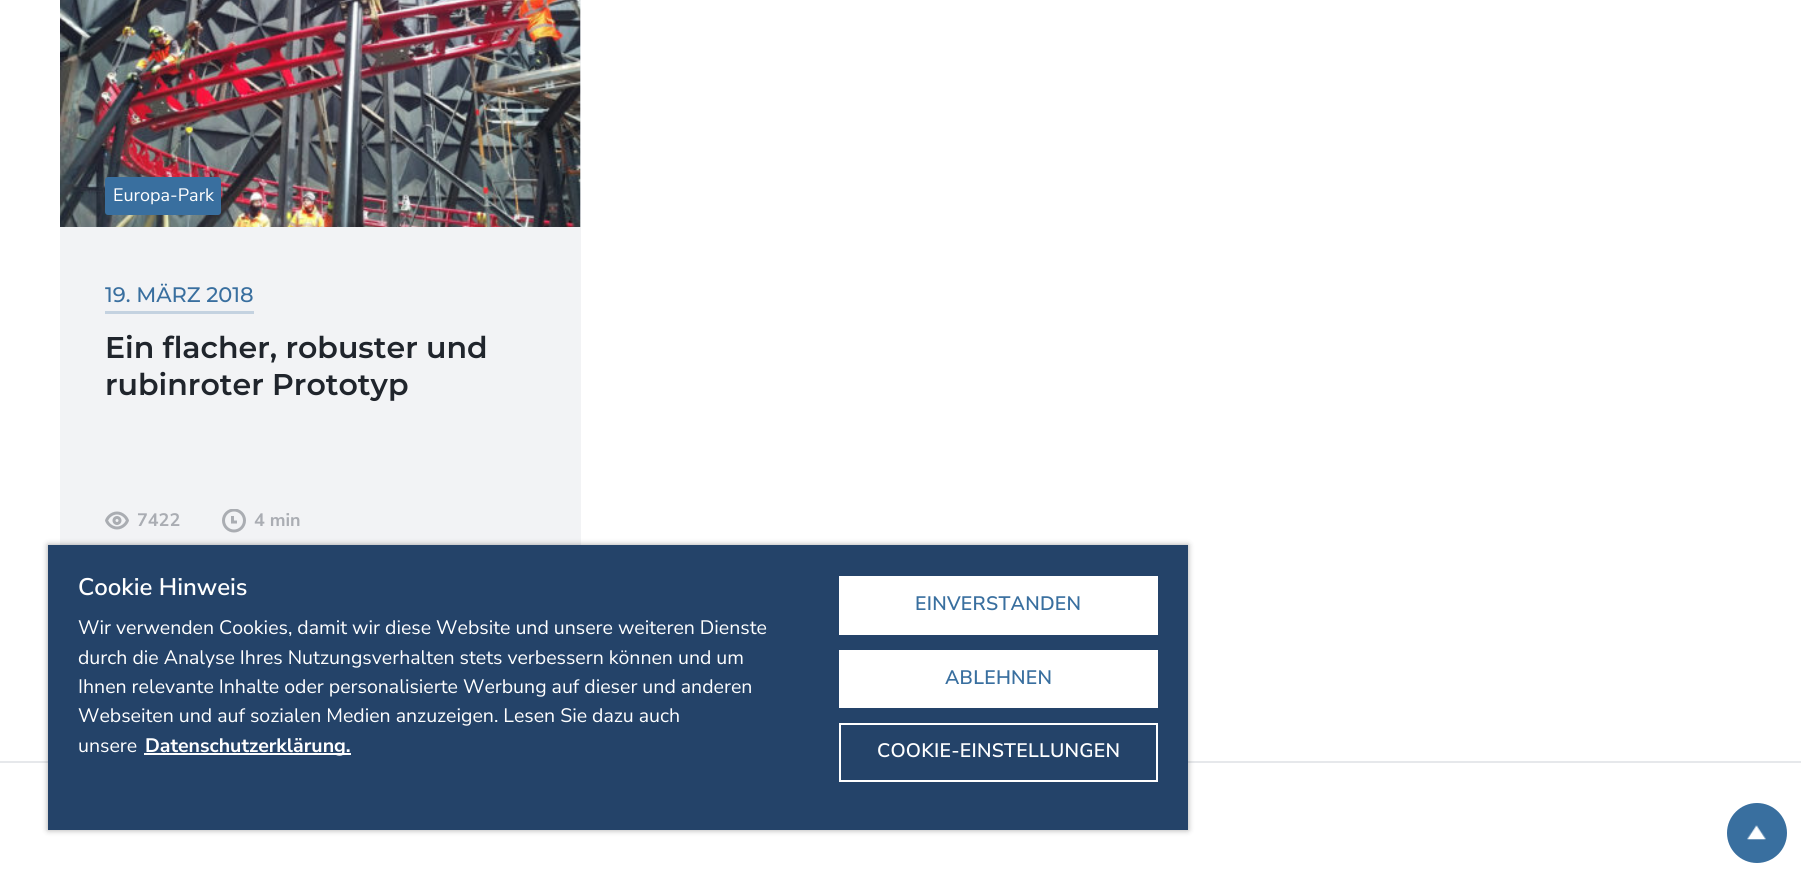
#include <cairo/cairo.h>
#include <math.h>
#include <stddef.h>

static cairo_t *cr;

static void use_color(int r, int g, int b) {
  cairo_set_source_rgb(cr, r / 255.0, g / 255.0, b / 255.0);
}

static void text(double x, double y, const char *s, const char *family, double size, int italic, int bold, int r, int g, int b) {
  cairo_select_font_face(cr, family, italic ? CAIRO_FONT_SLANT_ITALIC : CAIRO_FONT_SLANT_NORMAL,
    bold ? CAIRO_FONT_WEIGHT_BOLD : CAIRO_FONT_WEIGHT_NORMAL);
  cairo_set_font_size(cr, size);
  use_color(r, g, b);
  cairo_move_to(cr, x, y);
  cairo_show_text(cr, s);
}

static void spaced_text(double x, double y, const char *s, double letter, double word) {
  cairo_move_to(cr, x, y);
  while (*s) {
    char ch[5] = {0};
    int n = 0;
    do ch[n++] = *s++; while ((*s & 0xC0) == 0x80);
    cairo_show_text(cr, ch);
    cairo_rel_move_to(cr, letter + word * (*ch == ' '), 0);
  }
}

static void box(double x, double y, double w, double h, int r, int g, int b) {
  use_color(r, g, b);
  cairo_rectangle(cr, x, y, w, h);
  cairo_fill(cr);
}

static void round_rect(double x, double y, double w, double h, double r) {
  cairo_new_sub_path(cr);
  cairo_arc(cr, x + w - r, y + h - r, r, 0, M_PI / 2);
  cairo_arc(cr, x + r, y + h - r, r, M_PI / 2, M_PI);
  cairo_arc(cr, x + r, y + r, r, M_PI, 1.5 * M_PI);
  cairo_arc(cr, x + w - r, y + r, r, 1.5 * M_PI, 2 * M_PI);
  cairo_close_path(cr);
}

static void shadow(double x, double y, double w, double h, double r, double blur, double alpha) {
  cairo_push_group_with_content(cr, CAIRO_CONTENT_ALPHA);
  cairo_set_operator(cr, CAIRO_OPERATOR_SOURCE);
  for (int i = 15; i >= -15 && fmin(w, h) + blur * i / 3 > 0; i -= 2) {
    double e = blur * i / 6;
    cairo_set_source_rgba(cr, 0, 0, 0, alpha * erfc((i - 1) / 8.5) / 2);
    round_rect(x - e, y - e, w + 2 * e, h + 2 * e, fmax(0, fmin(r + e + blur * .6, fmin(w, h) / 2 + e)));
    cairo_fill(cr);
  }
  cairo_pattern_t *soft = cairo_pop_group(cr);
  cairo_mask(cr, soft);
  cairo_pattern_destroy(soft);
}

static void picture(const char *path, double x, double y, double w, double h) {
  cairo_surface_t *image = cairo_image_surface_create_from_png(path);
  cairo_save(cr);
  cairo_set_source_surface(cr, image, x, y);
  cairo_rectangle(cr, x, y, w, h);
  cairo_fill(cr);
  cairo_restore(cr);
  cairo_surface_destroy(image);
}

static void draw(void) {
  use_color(255, 255, 255);
  cairo_paint(cr);
  box(0, 761, 1801, 2, 230, 232, 235);
  box(580, 0, 1, 227, 242, 243, 245);
  picture("img_01.png", 60, 0, 521, 227);
  box(60, 227, 521, 318, 242, 243, 245);
  use_color(57, 111, 159);
  round_rect(105, 177, 116, 38, 3);
  cairo_fill(cr);
  box(105, 311, 149, 3, 196, 210, 224);
  picture("img_02.png", 105, 511, 24, 19);
  picture("img_03.png", 222, 509, 24, 24);
  use_color(57, 111, 159);
  cairo_arc(cr, 1757, 833, 30, 0, 2 * M_PI);
  cairo_fill(cr);
  picture("img_04.png", 1747, 825, 19, 15);
  use_color(0, 0, 0);
  shadow(48, 545, 1140, 285, 0, 3, 0.35);
  box(48, 545, 1140, 285, 36, 67, 105);
  box(144, 753, 207, 2, 255, 255, 255);
  box(839, 576, 319, 59, 255, 255, 255);
  box(839, 650, 319, 58, 255, 255, 255);
  cairo_rectangle(cr, 840, 724, 317, 57);
  cairo_stroke(cr);
  text(113, 201, "Europa-Park", "Nunito Sans", 18, 0, 0, 255, 255, 255);
  text(105, 302, "19. MÄRZ 2018", "Montserrat Medium", 21, 0, 0, 57, 111, 159);
  text(105, 358, "Ein flacher, robuster und", "Montserrat SemiBold", 30, 0, 0, 32, 37, 44);
  text(105, 395, "rubinroter Prototyp", "Montserrat SemiBold", 30, 0, 0, 32, 37, 44);
  text(137, 526, "7422", "Nunito Sans", 18, 0, 1, 170, 173, 179);
  text(254, 526, "4 min", "Nunito Sans", 18, 0, 1, 170, 173, 179);
  text(78, 595, "Cookie Hinweis", "Nunito Sans SemiBold", 24, 0, 0, 255, 255, 255);
  text(78, 634, "Wir verwenden Cookies, damit wir diese Website und unsere weiteren Dienste", "Nunito Sans", 19.5, 0, 0, 255, 255, 255);
  text(78, 664, "durch die Analyse Ihres Nutzungsverhalten stets verbessern können und um", "Nunito Sans", 19.5, 0, 0, 255, 255, 255);
  text(78, 693, "Ihnen relevante Inhalte oder personalisierte Werbung auf dieser und anderen", "Nunito Sans", 19.5, 0, 0, 255, 255, 255);
  text(78, 722, "Webseiten und auf sozialen Medien anzuzeigen. Lesen Sie dazu auch", "Nunito Sans", 19.5, 0, 0, 255, 255, 255);
  text(78, 752, "unsere", "Nunito Sans", 19.5, 0, 0, 255, 255, 255);
  text(145, 752, "Datenschutzerklärung.", "Nunito Sans", 19.5, 0, 1, 255, 255, 255);
  cairo_select_font_face(cr, "Nunito Sans SemiBold", CAIRO_FONT_SLANT_NORMAL, CAIRO_FONT_WEIGHT_NORMAL);
  use_color(57, 111, 159);
  spaced_text(915, 610, "EINVERSTANDEN", 0.25, 0);
  spaced_text(945, 684, "ABLEHNEN", 0.25, 0);
  use_color(255, 255, 255);
  spaced_text(877, 757, "COOKIE-EINSTELLUNGEN", 0.25, 0);
}

int main(void) {
  cairo_surface_t *surface = cairo_image_surface_create(CAIRO_FORMAT_RGB24, 1801, 877);
  cr = cairo_create(surface);
  cairo_font_options_t *options = cairo_font_options_create();
  cairo_font_options_set_hint_metrics(options, CAIRO_HINT_METRICS_OFF);
  cairo_font_options_set_hint_style(options, CAIRO_HINT_STYLE_NONE);
  cairo_set_font_options(cr, options);
  cairo_set_miter_limit(cr, 4);
  draw();
  cairo_surface_write_to_png(surface, "out.png");
  cairo_font_options_destroy(options);
  cairo_destroy(cr);
  cairo_surface_destroy(surface);
  return 0;
}
